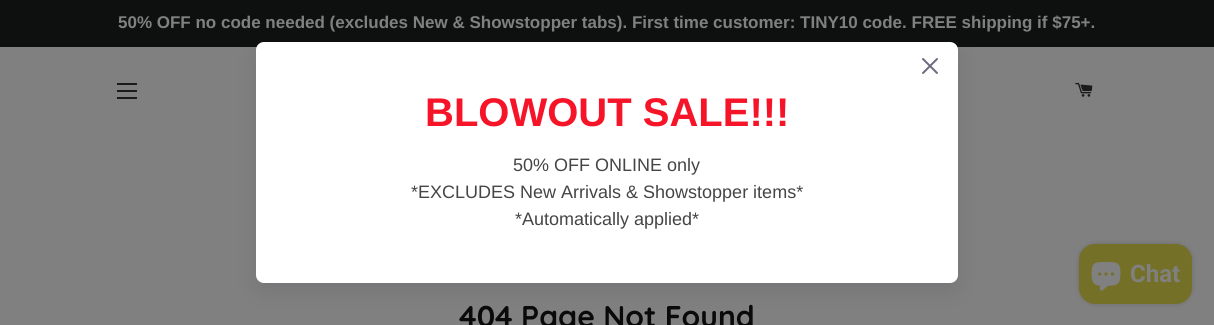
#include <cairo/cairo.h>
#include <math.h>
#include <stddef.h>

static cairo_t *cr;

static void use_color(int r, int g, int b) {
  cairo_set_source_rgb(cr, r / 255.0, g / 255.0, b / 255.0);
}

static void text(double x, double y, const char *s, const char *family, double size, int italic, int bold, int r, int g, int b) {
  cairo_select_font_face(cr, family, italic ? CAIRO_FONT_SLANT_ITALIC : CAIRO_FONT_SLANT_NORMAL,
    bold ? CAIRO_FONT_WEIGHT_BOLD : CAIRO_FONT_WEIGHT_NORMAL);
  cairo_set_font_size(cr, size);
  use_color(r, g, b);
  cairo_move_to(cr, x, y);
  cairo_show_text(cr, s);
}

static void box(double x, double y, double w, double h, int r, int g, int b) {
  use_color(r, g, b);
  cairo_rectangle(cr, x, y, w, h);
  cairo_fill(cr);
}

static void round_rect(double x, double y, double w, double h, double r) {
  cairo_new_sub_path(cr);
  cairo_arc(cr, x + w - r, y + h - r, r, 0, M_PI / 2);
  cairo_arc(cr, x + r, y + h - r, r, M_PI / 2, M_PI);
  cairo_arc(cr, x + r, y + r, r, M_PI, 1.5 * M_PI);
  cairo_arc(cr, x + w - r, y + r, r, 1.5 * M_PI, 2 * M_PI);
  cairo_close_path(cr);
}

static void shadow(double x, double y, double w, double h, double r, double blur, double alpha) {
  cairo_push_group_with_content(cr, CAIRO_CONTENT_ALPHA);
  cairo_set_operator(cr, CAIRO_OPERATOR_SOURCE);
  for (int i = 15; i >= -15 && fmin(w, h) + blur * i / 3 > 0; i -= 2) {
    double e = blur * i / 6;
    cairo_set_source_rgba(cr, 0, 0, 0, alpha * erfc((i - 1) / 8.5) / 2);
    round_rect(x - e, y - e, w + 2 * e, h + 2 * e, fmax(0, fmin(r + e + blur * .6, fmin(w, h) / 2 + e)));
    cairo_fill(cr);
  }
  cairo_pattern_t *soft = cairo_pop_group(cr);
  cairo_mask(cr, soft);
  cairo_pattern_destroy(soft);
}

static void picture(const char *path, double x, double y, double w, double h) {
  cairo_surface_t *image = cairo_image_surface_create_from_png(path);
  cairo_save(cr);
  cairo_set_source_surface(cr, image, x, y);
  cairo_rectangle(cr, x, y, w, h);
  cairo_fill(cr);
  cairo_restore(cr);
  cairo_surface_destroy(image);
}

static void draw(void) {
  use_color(128, 128, 128);
  cairo_paint(cr);
  box(0, 0, 1214, 47, 14, 15, 15);
  box(117, 83, 20, 2, 28, 27, 28);
  box(117, 90, 20, 2, 28, 27, 28);
  box(117, 97, 20, 2, 28, 27, 28);
  picture("img_01.png", 1075, 82, 18, 15);
  use_color(18, 17, 39);
  shadow(256, 50, 702, 241, 8, 10, 0.1);
  use_color(255, 255, 255);
  round_rect(256, 42, 702, 241, 8);
  cairo_fill(cr);
  picture("img_02.png", 922, 58, 16, 16);
  use_color(0, 0, 0);
  shadow(1079, 244, 113, 60, 16, 2.5, 0.15);
  use_color(116, 112, 40);
  round_rect(1079, 244, 113, 60, 16);
  cairo_fill(cr);
  picture("img_03.png", 1091, 262, 30, 29);
  text(118, 28, "50% OFF no code needed (excludes New & Showstopper tabs). First time customer: TINY10 code. FREE shipping if $75+.", "Liberation Sans", 17, 0, 1, 128, 128, 128);
  text(425, 126, "BLOWOUT SALE!!!", "Liberation Sans", 40, 0, 1, 245, 20, 40);
  text(513, 171, "50% OFF ONLINE only", "Liberation Sans", 18, 0, 0, 69, 69, 69);
  text(411, 198, "*EXCLUDES New Arrivals & Showstopper items*", "Liberation Sans", 18, 0, 0, 69, 69, 69);
  text(515, 225, "*Automatically applied*", "Liberation Sans", 18, 0, 0, 69, 69, 69);
  text(1130, 282, "Chat", "Roboto", 24, 0, 1, 128, 128, 128);
  text(459, 327, "404 Page Not Found", "Quicksand", 30, 0, 1, 10, 10, 11);
}

int main(void) {
  cairo_surface_t *surface = cairo_image_surface_create(CAIRO_FORMAT_RGB24, 1214, 325);
  cr = cairo_create(surface);
  cairo_font_options_t *options = cairo_font_options_create();
  cairo_font_options_set_hint_metrics(options, CAIRO_HINT_METRICS_OFF);
  cairo_font_options_set_hint_style(options, CAIRO_HINT_STYLE_NONE);
  cairo_set_font_options(cr, options);
  cairo_set_miter_limit(cr, 4);
  draw();
  cairo_surface_write_to_png(surface, "out.png");
  cairo_font_options_destroy(options);
  cairo_destroy(cr);
  cairo_surface_destroy(surface);
  return 0;
}
